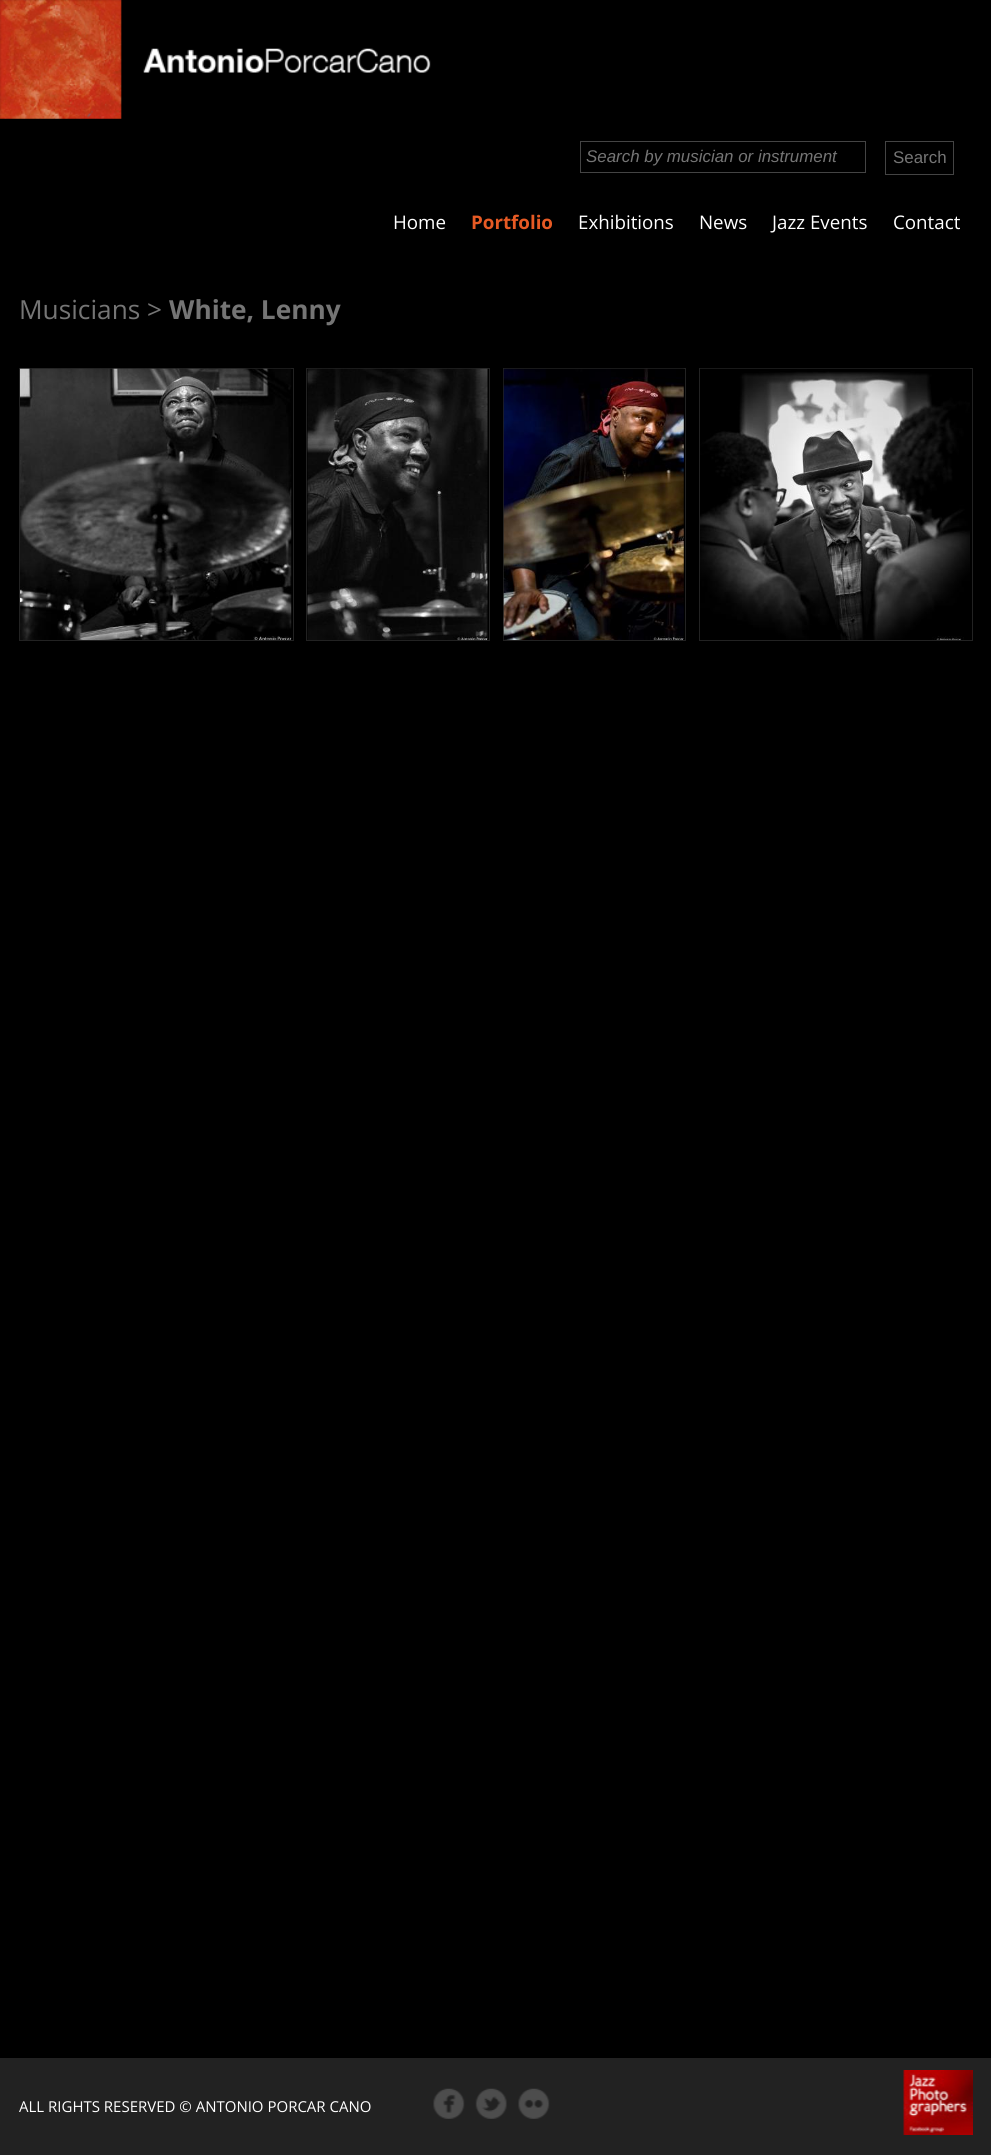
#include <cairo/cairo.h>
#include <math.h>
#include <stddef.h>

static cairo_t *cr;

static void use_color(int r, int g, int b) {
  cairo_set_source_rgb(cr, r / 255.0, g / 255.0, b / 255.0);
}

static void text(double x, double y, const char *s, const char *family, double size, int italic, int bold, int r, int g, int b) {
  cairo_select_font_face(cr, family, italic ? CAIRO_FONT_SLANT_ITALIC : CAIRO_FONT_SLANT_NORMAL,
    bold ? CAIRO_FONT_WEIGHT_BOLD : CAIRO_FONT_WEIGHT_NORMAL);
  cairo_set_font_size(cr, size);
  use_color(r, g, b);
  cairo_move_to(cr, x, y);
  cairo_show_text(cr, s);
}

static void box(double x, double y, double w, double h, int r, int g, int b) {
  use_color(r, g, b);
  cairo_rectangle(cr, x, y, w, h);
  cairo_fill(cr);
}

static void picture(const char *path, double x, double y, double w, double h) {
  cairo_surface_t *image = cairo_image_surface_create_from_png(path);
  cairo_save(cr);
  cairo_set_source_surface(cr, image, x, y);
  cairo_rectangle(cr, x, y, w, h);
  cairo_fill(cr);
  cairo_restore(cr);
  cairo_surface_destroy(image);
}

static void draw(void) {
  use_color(0, 0, 0);
  cairo_paint(cr);
  picture("img_01.png", 0, 0, 431, 119);
  cairo_rectangle(cr, 580.5, 141.5, 285, 31);
  use_color(68, 68, 68);
  cairo_set_line_width(cr, 1);
  cairo_stroke(cr);
  cairo_rectangle(cr, 885.5, 141.5, 68, 33);
  cairo_stroke(cr);
  cairo_rectangle(cr, 19.5, 368.5, 274, 272);
  use_color(34, 34, 34);
  cairo_stroke(cr);
  picture("img_02.png", 20, 368, 272, 272);
  cairo_rectangle(cr, 306.5, 368.5, 183, 272);
  cairo_stroke(cr);
  picture("img_03.png", 307, 368, 181, 272);
  cairo_rectangle(cr, 503.5, 368.5, 182, 272);
  cairo_stroke(cr);
  picture("img_04.png", 503, 368, 181, 272);
  cairo_rectangle(cr, 699.5, 368.5, 273, 272);
  cairo_stroke(cr);
  picture("img_05.png", 700, 368, 270, 272);
  box(0, 2058, 991, 97, 34, 34, 34);
  picture("img_06.png", 433, 2088, 32, 31);
  picture("img_07.png", 475, 2088, 32, 31);
  picture("img_08.png", 518, 2088, 32, 31);
  picture("img_09.png", 903, 2070, 70, 65);
  text(586, 162, "Search by musician or instrument", "Liberation Sans", 16.9, 1, 0, 117, 117, 117);
  text(893, 163, "Search", "Liberation Sans", 16.9, 0, 0, 117, 117, 117);
  text(393, 229, "Home", "Open Sans", 18.75, 0, 0, 255, 255, 255);
  text(471, 229, "Portfolio", "Open Sans", 18.75, 0, 1, 231, 90, 36);
  text(578, 229, "Exhibitions", "Open Sans", 18.75, 0, 0, 255, 255, 255);
  text(699, 229, "News", "Open Sans", 18.75, 0, 0, 255, 255, 255);
  text(772, 229, "Jazz Events", "Open Sans", 18.75, 0, 0, 255, 255, 255);
  text(893, 229, "Contact", "Open Sans", 18.75, 0, 0, 255, 255, 255);
  text(19, 319, "Musicians >", "Open Sans", 26.25, 0, 0, 117, 117, 117);
  text(169, 319, "White, Lenny", "Open Sans", 26.25, 0, 1, 117, 117, 117);
  text(19, 2112, "ALL RIGHTS RESERVED © ANTONIO PORCAR CANO", "Open Sans", 15, 0, 0, 255, 255, 255);
}

int main(void) {
  cairo_surface_t *surface = cairo_image_surface_create(CAIRO_FORMAT_RGB24, 991, 2155);
  cr = cairo_create(surface);
  cairo_font_options_t *options = cairo_font_options_create();
  cairo_font_options_set_hint_metrics(options, CAIRO_HINT_METRICS_OFF);
  cairo_font_options_set_hint_style(options, CAIRO_HINT_STYLE_NONE);
  cairo_set_font_options(cr, options);
  cairo_set_miter_limit(cr, 4);
  draw();
  cairo_surface_write_to_png(surface, "out.png");
  cairo_font_options_destroy(options);
  cairo_destroy(cr);
  cairo_surface_destroy(surface);
  return 0;
}
